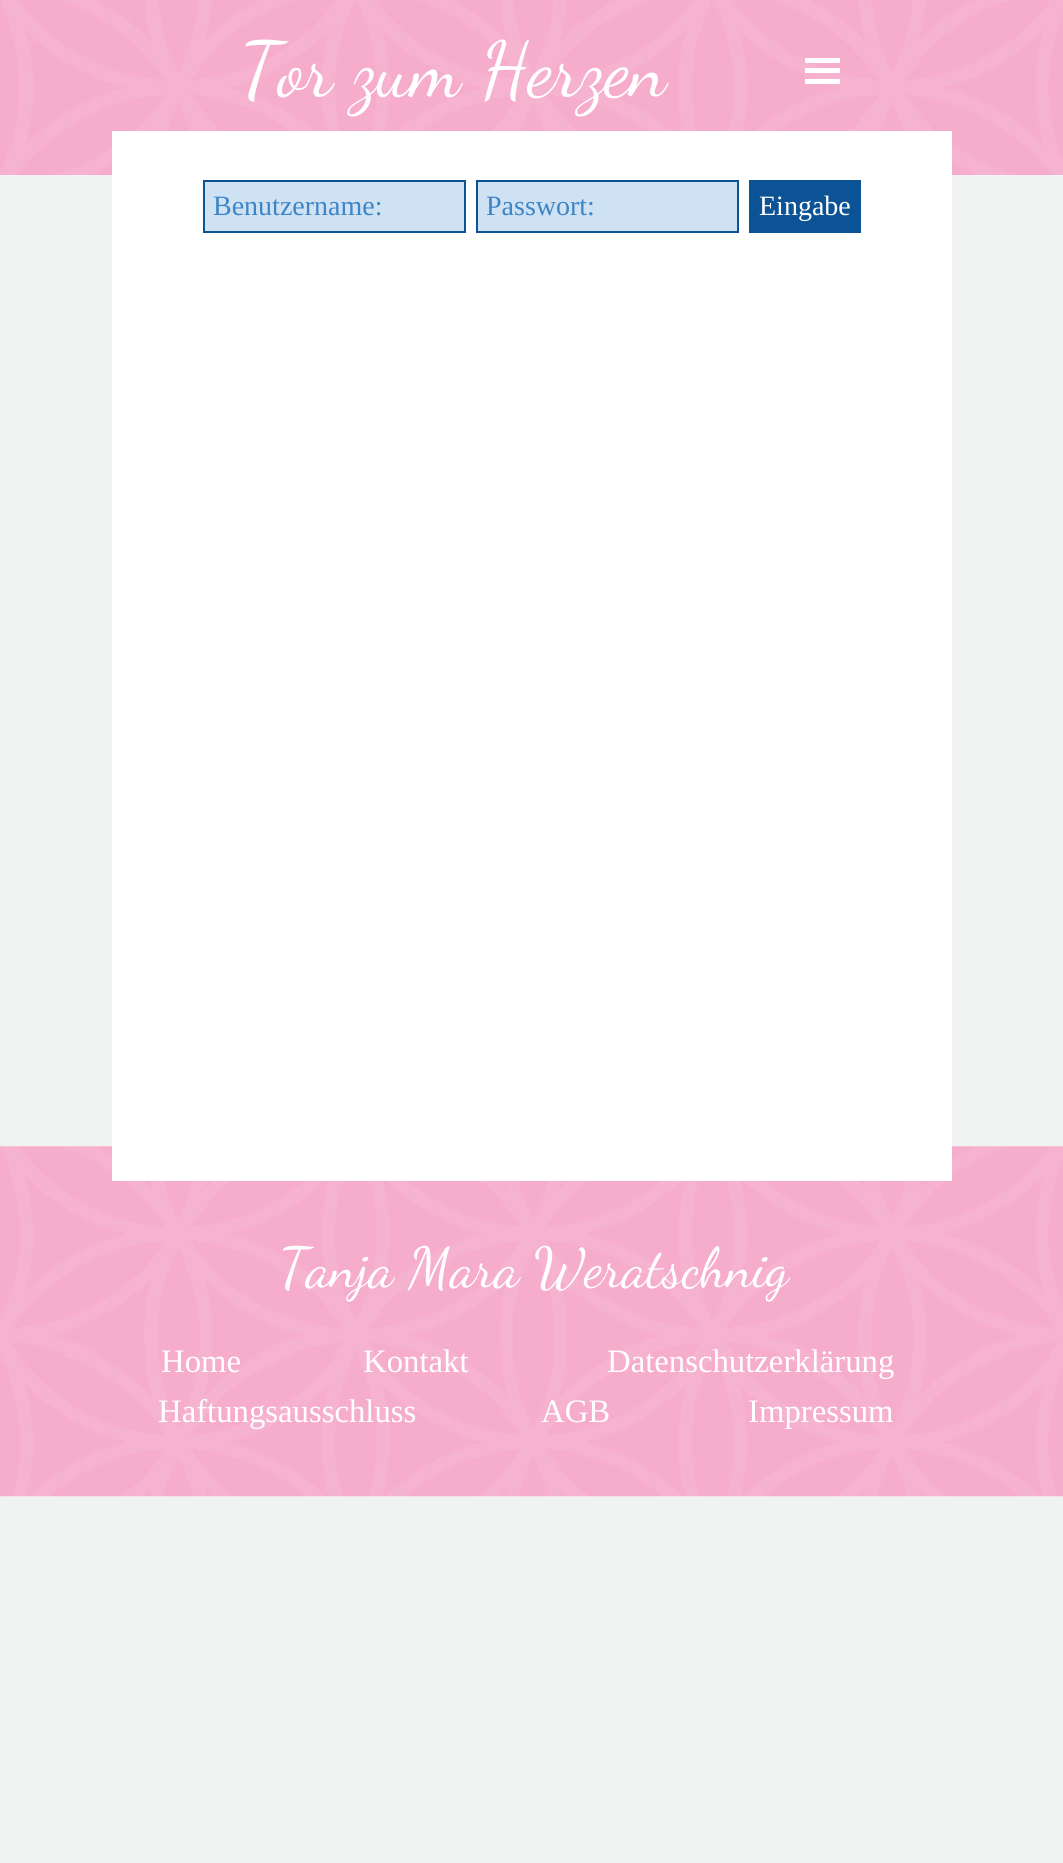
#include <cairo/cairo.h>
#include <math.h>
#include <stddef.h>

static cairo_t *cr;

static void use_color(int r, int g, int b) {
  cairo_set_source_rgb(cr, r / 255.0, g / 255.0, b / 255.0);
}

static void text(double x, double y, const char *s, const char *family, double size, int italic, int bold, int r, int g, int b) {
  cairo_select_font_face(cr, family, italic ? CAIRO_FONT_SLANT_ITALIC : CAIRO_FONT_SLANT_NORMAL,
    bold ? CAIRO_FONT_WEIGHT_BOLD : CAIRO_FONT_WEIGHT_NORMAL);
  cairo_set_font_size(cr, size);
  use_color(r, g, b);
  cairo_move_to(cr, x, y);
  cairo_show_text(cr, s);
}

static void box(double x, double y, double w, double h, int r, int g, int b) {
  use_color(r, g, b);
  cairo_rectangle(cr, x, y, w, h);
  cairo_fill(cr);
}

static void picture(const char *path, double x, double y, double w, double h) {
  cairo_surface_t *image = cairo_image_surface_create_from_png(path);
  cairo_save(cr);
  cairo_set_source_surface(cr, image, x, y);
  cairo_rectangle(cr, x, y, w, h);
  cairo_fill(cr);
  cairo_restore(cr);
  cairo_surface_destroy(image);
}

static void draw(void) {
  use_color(241, 243, 243);
  cairo_paint(cr);
  picture("img_01.png", 0, 0, 1063, 175);
  box(805, 58, 35, 5, 255, 255, 255);
  box(805, 68, 35, 5, 255, 255, 255);
  box(805, 79, 35, 5, 255, 255, 255);
  picture("img_02.png", 0, 1146, 1063, 351);
  box(112, 131, 840, 1050, 255, 255, 255);
  use_color(207, 226, 243);
  cairo_rectangle(cr, 204, 181, 261, 51);
  cairo_fill_preserve(cr);
  use_color(11, 83, 148);
  cairo_stroke(cr);
  use_color(207, 226, 243);
  cairo_rectangle(cr, 477, 181, 261, 51);
  cairo_fill_preserve(cr);
  use_color(11, 83, 148);
  cairo_stroke(cr);
  box(749, 180, 112, 53, 11, 83, 148);
  text(240, 95, "Tor zum Herzen", "Dancing Script", 77, 0, 0, 255, 255, 255);
  text(213, 215, "Benutzername:", "Liberation Serif", 28, 0, 0, 61, 133, 198);
  text(486, 215, "Passwort:", "Liberation Serif", 28, 0, 0, 61, 133, 198);
  text(759, 215, "Eingabe", "Liberation Serif", 28, 0, 0, 255, 255, 255);
  text(279, 1286, "Tanja Mara Weratschnig", "Dancing Script", 56, 0, 0, 255, 255, 255);
  text(161, 1372, "Home", "Liberation Serif", 32.75, 0, 0, 255, 255, 255);
  text(363, 1372, "Kontakt", "Liberation Serif", 32.75, 0, 0, 255, 255, 255);
  text(607, 1372, "Datenschutzerklärung", "Liberation Serif", 32.75, 0, 0, 255, 255, 255);
  text(158, 1422, "Haftungsausschluss", "Liberation Serif", 32.75, 0, 0, 255, 255, 255);
  text(541, 1422, "AGB", "Liberation Serif", 32.75, 0, 0, 255, 255, 255);
  text(748, 1422, "Impressum", "Liberation Serif", 32.75, 0, 0, 255, 255, 255);
}

int main(void) {
  cairo_surface_t *surface = cairo_image_surface_create(CAIRO_FORMAT_RGB24, 1063, 1863);
  cr = cairo_create(surface);
  cairo_font_options_t *options = cairo_font_options_create();
  cairo_font_options_set_hint_metrics(options, CAIRO_HINT_METRICS_OFF);
  cairo_font_options_set_hint_style(options, CAIRO_HINT_STYLE_NONE);
  cairo_set_font_options(cr, options);
  cairo_set_miter_limit(cr, 4);
  draw();
  cairo_surface_write_to_png(surface, "out.png");
  cairo_font_options_destroy(options);
  cairo_destroy(cr);
  cairo_surface_destroy(surface);
  return 0;
}
